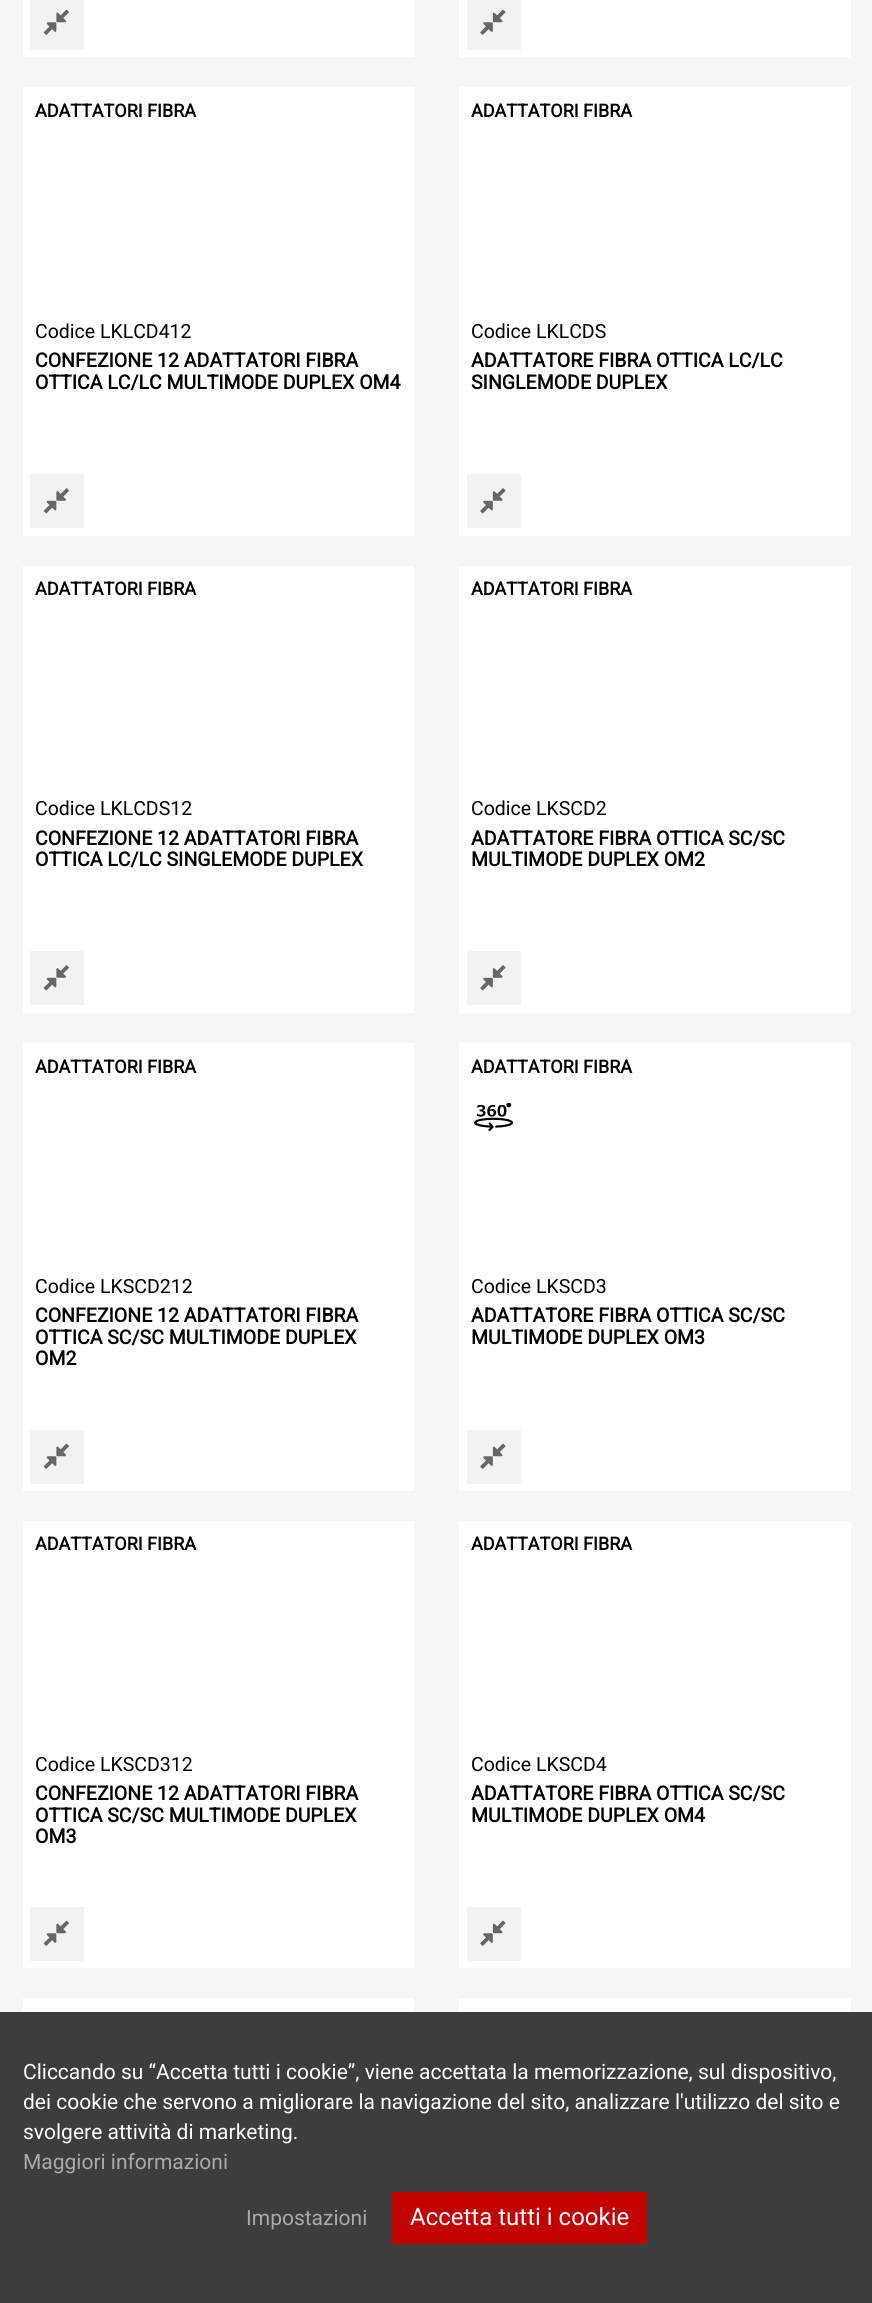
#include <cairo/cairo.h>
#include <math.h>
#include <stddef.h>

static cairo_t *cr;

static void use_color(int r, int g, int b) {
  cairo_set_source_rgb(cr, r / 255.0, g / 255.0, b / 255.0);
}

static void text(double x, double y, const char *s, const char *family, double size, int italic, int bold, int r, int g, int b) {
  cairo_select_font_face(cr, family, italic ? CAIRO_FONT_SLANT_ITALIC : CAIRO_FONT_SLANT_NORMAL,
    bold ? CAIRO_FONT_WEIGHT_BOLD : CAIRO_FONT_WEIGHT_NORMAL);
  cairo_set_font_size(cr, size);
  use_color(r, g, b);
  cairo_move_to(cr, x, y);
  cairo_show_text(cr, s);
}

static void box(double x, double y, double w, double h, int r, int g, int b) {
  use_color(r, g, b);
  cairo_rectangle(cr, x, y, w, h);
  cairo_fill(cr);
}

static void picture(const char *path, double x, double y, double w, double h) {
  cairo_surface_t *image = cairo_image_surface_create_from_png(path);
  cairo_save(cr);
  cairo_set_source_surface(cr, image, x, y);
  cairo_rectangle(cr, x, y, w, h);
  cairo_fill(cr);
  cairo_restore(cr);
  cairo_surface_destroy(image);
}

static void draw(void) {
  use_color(246, 246, 246);
  cairo_paint(cr);
  box(0, 2012, 872, 291, 61, 61, 61);
  box(23, 0, 391, 57, 255, 255, 255);
  box(30, 0, 54, 50, 242, 242, 242);
  picture("img_01.png", 43, 9, 26, 26);
  box(459, 0, 392, 57, 255, 255, 255);
  box(467, 0, 54, 50, 242, 242, 242);
  picture("img_02.png", 480, 9, 26, 26);
  box(23, 87, 391, 449, 255, 255, 255);
  box(30, 474, 54, 54, 242, 242, 242);
  picture("img_03.png", 43, 488, 26, 26);
  box(459, 87, 392, 449, 255, 255, 255);
  box(467, 474, 54, 54, 242, 242, 242);
  picture("img_04.png", 480, 488, 26, 26);
  box(23, 566, 391, 447, 255, 255, 255);
  box(30, 951, 54, 54, 242, 242, 242);
  picture("img_03.png", 43, 965, 26, 26);
  box(459, 566, 392, 447, 255, 255, 255);
  box(467, 951, 54, 54, 242, 242, 242);
  picture("img_04.png", 480, 965, 26, 26);
  box(23, 1043, 391, 448, 255, 255, 255);
  box(30, 1430, 54, 54, 242, 242, 242);
  picture("img_01.png", 43, 1443, 26, 26);
  box(459, 1043, 392, 448, 255, 255, 255);
  picture("img_05.png", 474, 1103, 39, 28);
  box(467, 1430, 54, 54, 242, 242, 242);
  picture("img_02.png", 480, 1443, 26, 26);
  box(23, 1521, 391, 447, 255, 255, 255);
  box(30, 1907, 54, 54, 242, 242, 242);
  picture("img_01.png", 43, 1920, 26, 26);
  box(459, 1521, 392, 447, 255, 255, 255);
  box(467, 1907, 54, 54, 242, 242, 242);
  picture("img_02.png", 480, 1920, 26, 26);
  box(23, 1998, 391, 14, 255, 255, 255);
  box(459, 1998, 392, 14, 255, 255, 255);
  box(392, 2192, 255, 52, 194, 1, 1);
  text(35, 117, "ADATTATORI FIBRA", "Roboto", 18, 0, 1, 0, 0, 0);
  text(35, 338, "Codice LKLCD412", "Roboto", 19.5, 0, 0, 0, 0, 0);
  text(35, 367, "CONFEZIONE 12 ADATTATORI FIBRA", "Roboto", 19.5, 0, 1, 0, 0, 0);
  text(35, 389, "OTTICA LC/LC MULTIMODE DUPLEX OM4", "Roboto", 19.5, 0, 1, 0, 0, 0);
  text(471, 117, "ADATTATORI FIBRA", "Roboto", 18, 0, 1, 0, 0, 0);
  text(471, 338, "Codice LKLCDS", "Roboto", 19.5, 0, 0, 0, 0, 0);
  text(471, 367, "ADATTATORE FIBRA OTTICA LC/LC", "Roboto", 19.5, 0, 1, 0, 0, 0);
  text(471, 389, "SINGLEMODE DUPLEX", "Roboto", 19.5, 0, 1, 0, 0, 0);
  text(35, 595, "ADATTATORI FIBRA", "Roboto", 18, 0, 1, 0, 0, 0);
  text(35, 815, "Codice LKLCDS12", "Roboto", 19.5, 0, 0, 0, 0, 0);
  text(35, 845, "CONFEZIONE 12 ADATTATORI FIBRA", "Roboto", 19.5, 0, 1, 0, 0, 0);
  text(35, 866, "OTTICA LC/LC SINGLEMODE DUPLEX", "Roboto", 19.5, 0, 1, 0, 0, 0);
  text(471, 595, "ADATTATORI FIBRA", "Roboto", 18, 0, 1, 0, 0, 0);
  text(471, 815, "Codice LKSCD2", "Roboto", 19.5, 0, 0, 0, 0, 0);
  text(471, 845, "ADATTATORE FIBRA OTTICA SC/SC", "Roboto", 19.5, 0, 1, 0, 0, 0);
  text(471, 866, "MULTIMODE DUPLEX OM2", "Roboto", 19.5, 0, 1, 0, 0, 0);
  text(35, 1073, "ADATTATORI FIBRA", "Roboto", 18, 0, 1, 0, 0, 0);
  text(35, 1293, "Codice LKSCD212", "Roboto", 19.5, 0, 0, 0, 0, 0);
  text(35, 1322, "CONFEZIONE 12 ADATTATORI FIBRA", "Roboto", 19.5, 0, 1, 0, 0, 0);
  text(35, 1344, "OTTICA SC/SC MULTIMODE DUPLEX", "Roboto", 19.5, 0, 1, 0, 0, 0);
  text(35, 1365, "OM2", "Roboto", 19.5, 0, 1, 0, 0, 0);
  text(471, 1073, "ADATTATORI FIBRA", "Roboto", 18, 0, 1, 0, 0, 0);
  text(471, 1293, "Codice LKSCD3", "Roboto", 19.5, 0, 0, 0, 0, 0);
  text(471, 1322, "ADATTATORE FIBRA OTTICA SC/SC", "Roboto", 19.5, 0, 1, 0, 0, 0);
  text(471, 1344, "MULTIMODE DUPLEX OM3", "Roboto", 19.5, 0, 1, 0, 0, 0);
  text(35, 1550, "ADATTATORI FIBRA", "Roboto", 18, 0, 1, 0, 0, 0);
  text(35, 1771, "Codice LKSCD312", "Roboto", 19.5, 0, 0, 0, 0, 0);
  text(35, 1800, "CONFEZIONE 12 ADATTATORI FIBRA", "Roboto", 19.5, 0, 1, 0, 0, 0);
  text(35, 1822, "OTTICA SC/SC MULTIMODE DUPLEX", "Roboto", 19.5, 0, 1, 0, 0, 0);
  text(35, 1843, "OM3", "Roboto", 19.5, 0, 1, 0, 0, 0);
  text(471, 1550, "ADATTATORI FIBRA", "Roboto", 18, 0, 1, 0, 0, 0);
  text(471, 1771, "Codice LKSCD4", "Roboto", 19.5, 0, 0, 0, 0, 0);
  text(471, 1800, "ADATTATORE FIBRA OTTICA SC/SC", "Roboto", 19.5, 0, 1, 0, 0, 0);
  text(471, 1822, "MULTIMODE DUPLEX OM4", "Roboto", 19.5, 0, 1, 0, 0, 0);
  text(23, 2079, "Cliccando su “Accetta tutti i cookie”, viene accettata la memorizzazione, sul dispositivo,", "Roboto", 21, 0, 0, 255, 255, 255);
  text(23, 2109, "dei cookie che servono a migliorare la navigazione del sito, analizzare l'utilizzo del sito e", "Roboto", 21, 0, 0, 255, 255, 255);
  text(23, 2139, "svolgere attività di marketing.", "Roboto", 21, 0, 0, 255, 255, 255);
  text(23, 2169, "Maggiori informazioni", "Roboto", 21, 0, 0, 170, 170, 170);
  text(246, 2225, "Impostazioni", "Roboto", 21, 0, 0, 170, 170, 170);
  text(410, 2225, "Accetta tutti i cookie", "Roboto", 24, 0, 0, 255, 255, 255);
}

int main(void) {
  cairo_surface_t *surface = cairo_image_surface_create(CAIRO_FORMAT_RGB24, 872, 2303);
  cr = cairo_create(surface);
  cairo_font_options_t *options = cairo_font_options_create();
  cairo_font_options_set_hint_metrics(options, CAIRO_HINT_METRICS_OFF);
  cairo_font_options_set_hint_style(options, CAIRO_HINT_STYLE_NONE);
  cairo_set_font_options(cr, options);
  cairo_set_miter_limit(cr, 4);
  draw();
  cairo_surface_write_to_png(surface, "out.png");
  cairo_font_options_destroy(options);
  cairo_destroy(cr);
  cairo_surface_destroy(surface);
  return 0;
}
